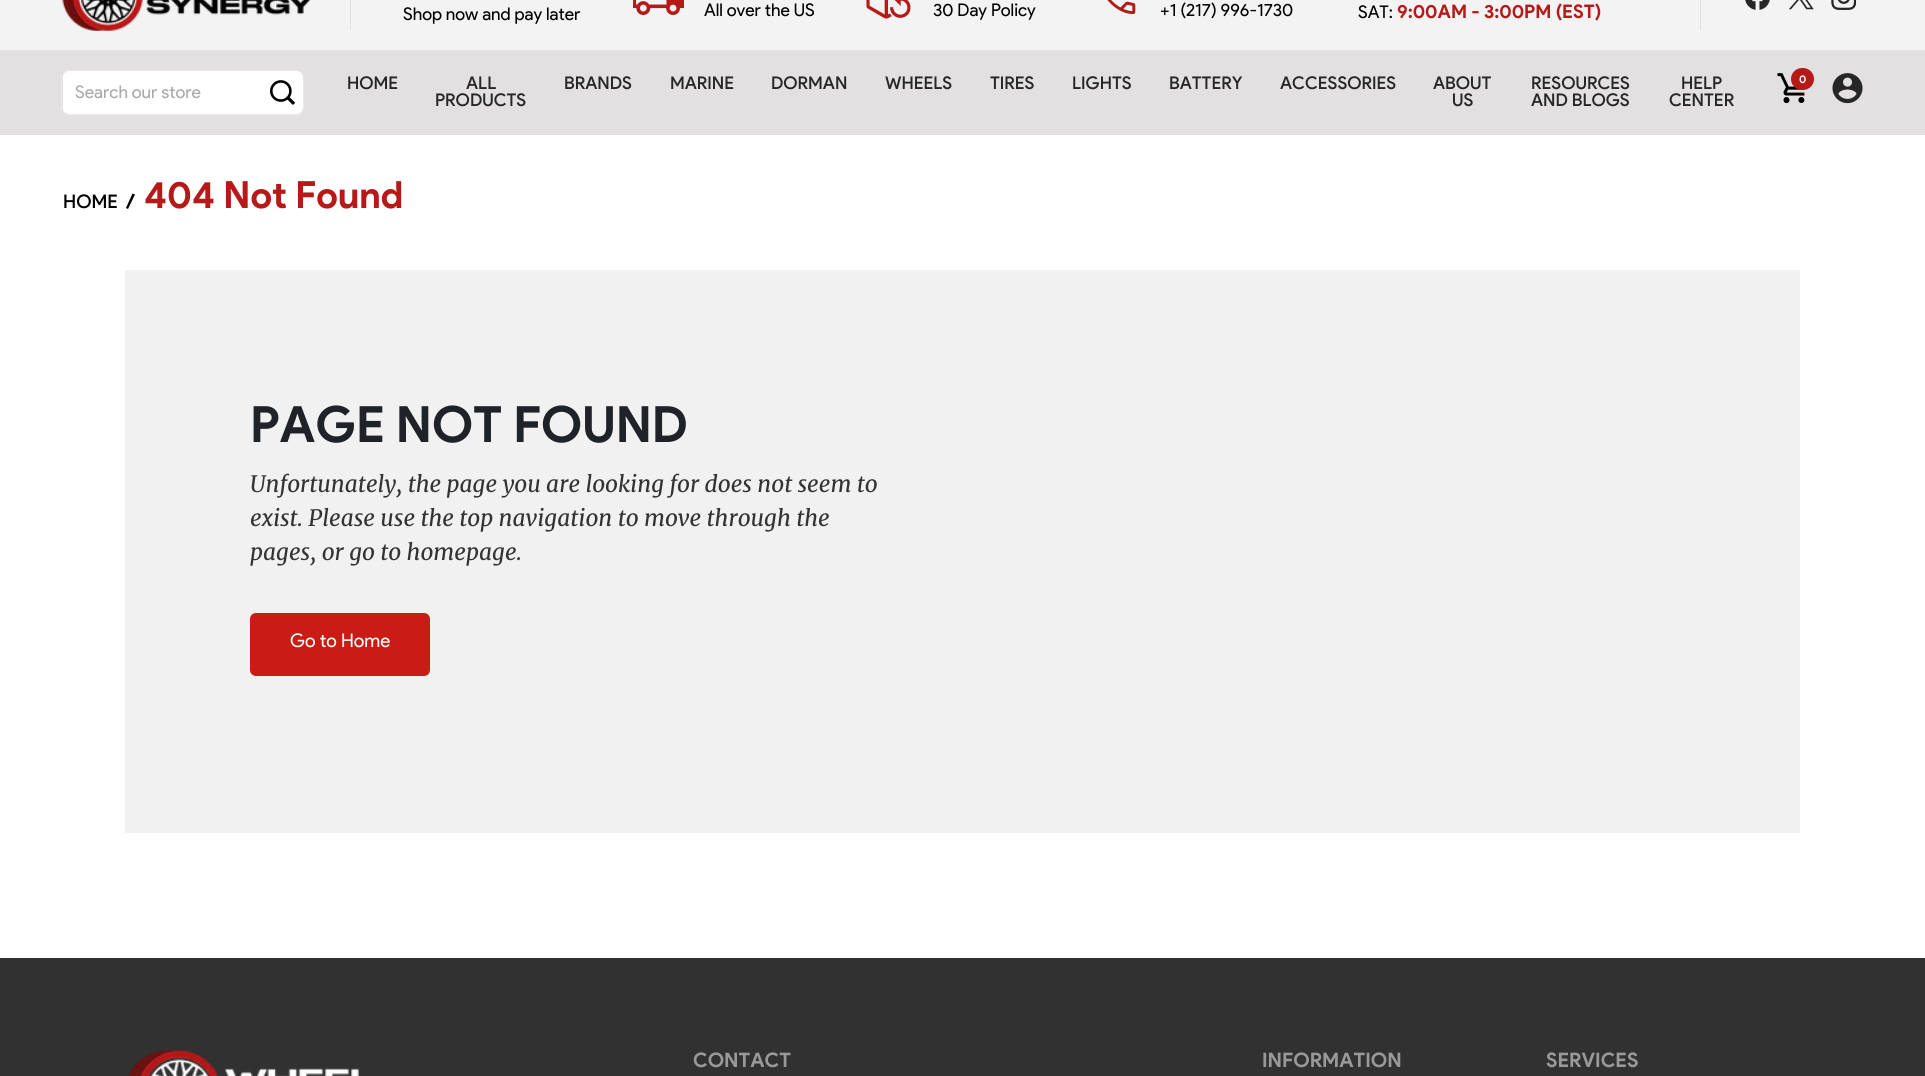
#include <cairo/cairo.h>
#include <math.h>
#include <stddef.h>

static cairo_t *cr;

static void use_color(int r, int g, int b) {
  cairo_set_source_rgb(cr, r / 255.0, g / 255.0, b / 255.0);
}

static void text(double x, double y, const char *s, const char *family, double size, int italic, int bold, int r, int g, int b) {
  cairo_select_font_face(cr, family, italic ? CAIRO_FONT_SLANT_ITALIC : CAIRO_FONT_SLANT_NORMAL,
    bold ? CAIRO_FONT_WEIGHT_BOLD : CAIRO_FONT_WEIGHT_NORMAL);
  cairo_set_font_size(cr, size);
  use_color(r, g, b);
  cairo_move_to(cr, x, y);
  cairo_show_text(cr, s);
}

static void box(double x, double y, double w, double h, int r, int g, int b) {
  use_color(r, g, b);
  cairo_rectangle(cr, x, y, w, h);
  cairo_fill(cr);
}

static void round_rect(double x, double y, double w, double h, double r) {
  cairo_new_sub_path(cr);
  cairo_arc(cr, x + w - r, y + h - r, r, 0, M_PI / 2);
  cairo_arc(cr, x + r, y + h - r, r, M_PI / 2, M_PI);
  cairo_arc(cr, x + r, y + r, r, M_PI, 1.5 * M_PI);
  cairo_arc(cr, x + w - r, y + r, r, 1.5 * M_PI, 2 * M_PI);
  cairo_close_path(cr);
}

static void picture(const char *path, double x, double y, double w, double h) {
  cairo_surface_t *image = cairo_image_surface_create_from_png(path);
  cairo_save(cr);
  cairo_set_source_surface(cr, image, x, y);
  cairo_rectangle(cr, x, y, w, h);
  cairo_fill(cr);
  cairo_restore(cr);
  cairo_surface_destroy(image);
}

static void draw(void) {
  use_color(255, 255, 255);
  cairo_paint(cr);
  box(0, 50, 1925, 85, 226, 224, 224);
  box(0, 0, 1925, 50, 243, 243, 243);
  picture("img_01.png", 62, 0, 249, 31);
  box(1700, 0, 1, 30, 226, 224, 224);
  box(350, 0, 1, 30, 226, 224, 224);
  picture("img_02.png", 633, 0, 51, 15);
  picture("img_03.png", 866, 0, 45, 19);
  picture("img_04.png", 1107, 0, 29, 15);
  picture("img_05.png", 1745, 0, 25, 10);
  picture("img_06.png", 1789, 0, 25, 10);
  picture("img_07.png", 1831, 0, 25, 10);
  use_color(255, 255, 255);
  round_rect(63, 71, 240, 43, 6);
  cairo_fill(cr);
  round_rect(61.5, 70.5, 242, 44, 7.5);
  use_color(234, 234, 234);
  cairo_set_line_width(cr, 1);
  cairo_stroke(cr);
  picture("img_08.png", 270, 80, 25, 25);
  picture("img_09.png", 1777, 73, 28, 31);
  use_color(183, 24, 24);
  round_rect(1791, 68, 23, 22, 11);
  cairo_fill(cr);
  picture("img_10.png", 1832, 73, 31, 31);
  use_color(0, 0, 0);
  cairo_new_path(cr);
  cairo_move_to(cr, 135, 194.5);
  cairo_line_to(cr, 128, 209);
  cairo_line_to(cr, 126, 208);
  cairo_line_to(cr, 132.5, 193.5);
  cairo_close_path(cr);
  cairo_fill(cr);
  box(125, 270, 1675, 563, 241, 241, 241);
  use_color(200, 28, 20);
  round_rect(251.5, 614.5, 177, 60, 4.5);
  cairo_fill_preserve(cr);
  cairo_set_line_width(cr, 3);
  cairo_stroke(cr);
  box(0, 958, 1925, 118, 49, 49, 49);
  picture("img_11.png", 127, 1050, 232, 26);
  text(403, 20, "Shop now and pay later", "Product Sans", 17.5, 0, 0, 0, 0, 0);
  text(704, 16, "All over the US", "Product Sans", 17.5, 0, 0, 0, 0, 0);
  text(933, 16, "30 Day Policy", "Product Sans", 17.5, 0, 0, 0, 0, 0);
  text(1160, 16, "+1 (217) 996-1730", "Product Sans", 17.5, 0, 0, 0, 0, 0);
  text(1358, 18, "SAT:", "Product Sans", 17.5, 0, 0, 0, 0, 0);
  text(1397, 18, "9:00AM - 3:00PM (EST)", "Product Sans", 18.75, 0, 1, 183, 24, 24);
  text(75, 98, "Search our store", "Product Sans", 17.5, 0, 0, 170, 170, 170);
  text(347, 89, "HOME", "Product Sans Medium", 17.5, 0, 0, 38, 38, 38);
  text(466, 89, "ALL", "Product Sans Medium", 17.5, 0, 0, 38, 38, 38);
  text(435, 106, "PRODUCTS", "Product Sans Medium", 17.5, 0, 0, 38, 38, 38);
  text(564, 89, "BRANDS", "Product Sans Medium", 17.5, 0, 0, 38, 38, 38);
  text(670, 89, "MARINE", "Product Sans Medium", 17.5, 0, 0, 38, 38, 38);
  text(771, 89, "DORMAN", "Product Sans Medium", 17.5, 0, 0, 38, 38, 38);
  text(885, 89, "WHEELS", "Product Sans Medium", 17.5, 0, 0, 38, 38, 38);
  text(990, 89, "TIRES", "Product Sans Medium", 17.5, 0, 0, 38, 38, 38);
  text(1072, 89, "LIGHTS", "Product Sans Medium", 17.5, 0, 0, 38, 38, 38);
  text(1169, 89, "BATTERY", "Product Sans Medium", 17.5, 0, 0, 38, 38, 38);
  text(1280, 89, "ACCESSORIES", "Product Sans Medium", 17.5, 0, 0, 38, 38, 38);
  text(1433, 89, "ABOUT", "Product Sans Medium", 17.5, 0, 0, 38, 38, 38);
  text(1452, 106, "US", "Product Sans Medium", 17.5, 0, 0, 38, 38, 38);
  text(1531, 89, "RESOURCES", "Product Sans Medium", 17.5, 0, 0, 38, 38, 38);
  text(1531, 106, "AND BLOGS", "Product Sans Medium", 17.5, 0, 0, 38, 38, 38);
  text(1681, 89, "HELP", "Product Sans Medium", 17.5, 0, 0, 38, 38, 38);
  text(1669, 106, "CENTER", "Product Sans Medium", 17.5, 0, 0, 38, 38, 38);
  text(1799, 83, "0", "Product Sans", 11, 0, 1, 255, 255, 255);
  text(63, 208, "HOME", "Product Sans Medium", 18.75, 0, 0, 0, 0, 0);
  text(144, 208, "404 Not Found", "Product Sans", 37.5, 0, 1, 183, 24, 24);
  text(250, 442, "PAGE NOT FOUND", "Product Sans", 50, 0, 1, 31, 34, 38);
  text(250, 492, "Unfortunately, the page you are looking for does not seem to", "Merriweather", 22.5, 1, 0, 51, 51, 51);
  text(250, 526, "exist. Please use the top navigation to move through the", "Merriweather", 22.5, 1, 0, 51, 51, 51);
  text(250, 560, "pages, or go to homepage.", "Merriweather", 22.5, 1, 0, 51, 51, 51);
  text(290, 647, "Go to Home", "Product Sans", 18.75, 0, 0, 255, 255, 255);
  text(693, 1067, "CONTACT", "Product Sans", 20, 0, 1, 153, 153, 153);
  text(1262, 1067, "INFORMATION", "Product Sans", 20, 0, 1, 153, 153, 153);
  text(1546, 1067, "SERVICES", "Product Sans", 20, 0, 1, 153, 153, 153);
}

int main(void) {
  cairo_surface_t *surface = cairo_image_surface_create(CAIRO_FORMAT_RGB24, 1925, 1076);
  cr = cairo_create(surface);
  cairo_font_options_t *options = cairo_font_options_create();
  cairo_font_options_set_hint_metrics(options, CAIRO_HINT_METRICS_OFF);
  cairo_font_options_set_hint_style(options, CAIRO_HINT_STYLE_NONE);
  cairo_set_font_options(cr, options);
  cairo_set_miter_limit(cr, 4);
  draw();
  cairo_surface_write_to_png(surface, "out.png");
  cairo_font_options_destroy(options);
  cairo_destroy(cr);
  cairo_surface_destroy(surface);
  return 0;
}
